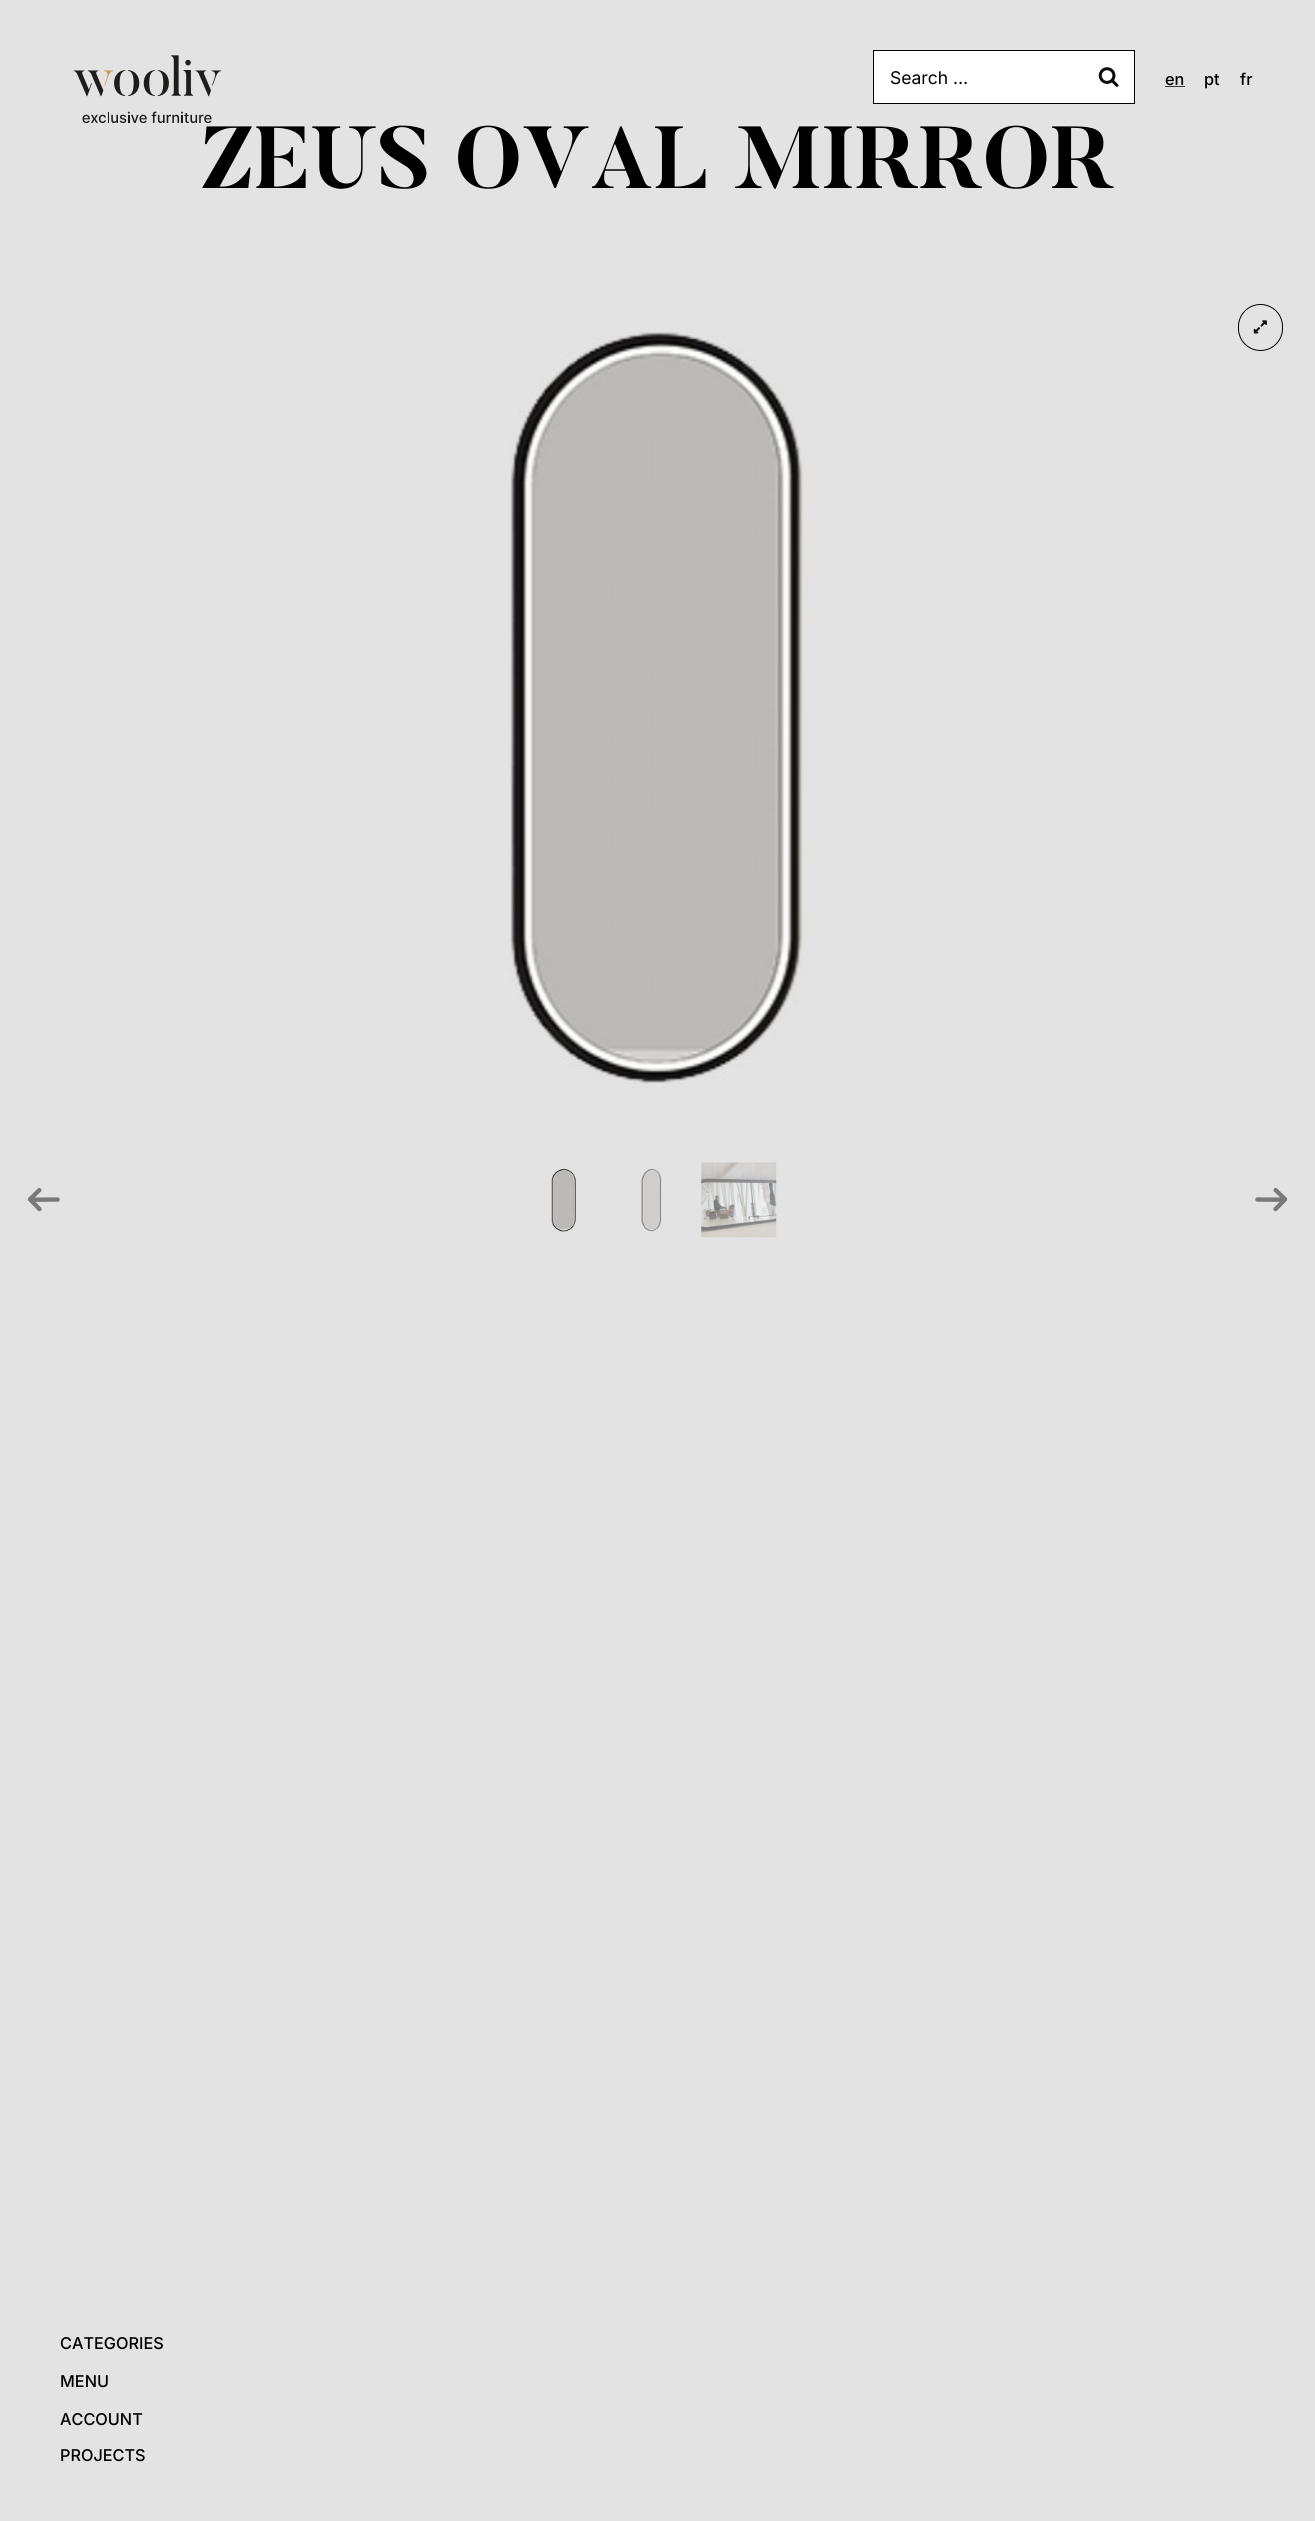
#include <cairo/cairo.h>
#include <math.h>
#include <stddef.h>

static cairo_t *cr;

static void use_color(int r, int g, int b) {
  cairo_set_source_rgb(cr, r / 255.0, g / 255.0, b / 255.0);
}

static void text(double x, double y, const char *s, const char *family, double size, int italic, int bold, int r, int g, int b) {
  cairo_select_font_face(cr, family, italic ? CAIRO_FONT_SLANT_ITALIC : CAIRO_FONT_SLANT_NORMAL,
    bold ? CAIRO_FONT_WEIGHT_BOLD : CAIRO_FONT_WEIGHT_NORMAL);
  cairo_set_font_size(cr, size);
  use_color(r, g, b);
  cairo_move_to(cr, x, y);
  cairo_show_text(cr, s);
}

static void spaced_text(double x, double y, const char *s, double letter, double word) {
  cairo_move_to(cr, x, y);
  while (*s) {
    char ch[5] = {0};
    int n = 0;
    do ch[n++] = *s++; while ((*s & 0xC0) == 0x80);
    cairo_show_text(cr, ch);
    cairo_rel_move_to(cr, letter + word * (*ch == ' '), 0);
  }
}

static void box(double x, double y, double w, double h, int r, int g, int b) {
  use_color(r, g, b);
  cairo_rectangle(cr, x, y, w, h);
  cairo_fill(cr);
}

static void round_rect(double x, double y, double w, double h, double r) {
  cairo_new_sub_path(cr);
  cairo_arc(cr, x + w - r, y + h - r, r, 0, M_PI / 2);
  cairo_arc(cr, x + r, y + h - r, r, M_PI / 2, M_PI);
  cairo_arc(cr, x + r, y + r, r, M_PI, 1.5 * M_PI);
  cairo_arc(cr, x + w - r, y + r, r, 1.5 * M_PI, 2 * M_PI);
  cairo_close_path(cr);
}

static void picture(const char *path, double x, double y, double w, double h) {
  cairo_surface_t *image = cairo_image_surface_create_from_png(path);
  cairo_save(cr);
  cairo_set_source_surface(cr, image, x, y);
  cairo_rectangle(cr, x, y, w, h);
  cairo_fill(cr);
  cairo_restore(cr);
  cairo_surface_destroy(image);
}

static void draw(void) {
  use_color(227, 227, 227);
  cairo_paint(cr);
  picture("img_01.png", 73, 55, 149, 69);
  use_color(255, 255, 255);
  cairo_rectangle(cr, 873.5, 50.5, 261, 53);
  cairo_fill_preserve(cr);
  use_color(0, 0, 0);
  cairo_set_line_width(cr, 1);
  cairo_stroke(cr);
  picture("img_02.png", 1098, 67, 21, 20);
  box(1165, 86, 20, 1, 51, 51, 51);
  round_rect(1238.5, 304.5, 44, 46, 22);
  use_color(0, 0, 0);
  cairo_stroke(cr);
  picture("img_03.png", 1253, 320, 14, 14);
  picture("img_04.png", 509, 332, 296, 756);
  picture("img_05.png", 550, 1168, 29, 66);
  picture("img_06.png", 640, 1168, 22, 66);
  picture("img_07.png", 701, 1162, 76, 76);
  picture("img_08.png", 27, 1187, 33, 25);
  picture("img_09.png", 1255, 1188, 33, 24);
  text(890, 84, "Search …", "Inter", 17.5, 0, 0, 0, 0, 0);
  text(1165, 85, "en", "Inter Medium", 16.25, 0, 0, 0, 0, 0);
  text(1204, 85, "pt", "Inter Medium", 16.25, 0, 0, 0, 0, 0);
  text(1240, 85, "fr", "Inter Medium", 16.25, 0, 0, 0, 0, 0);
  text(60, 2349, "CATEGORIES", "Inter Medium", 16.25, 0, 0, 0, 0, 0);
  text(60, 2387, "MENU", "Inter Medium", 16.25, 0, 0, 0, 0, 0);
  text(60, 2425, "ACCOUNT", "Inter Medium", 16.25, 0, 0, 0, 0, 0);
  text(60, 2461, "PROJECTS", "Inter Medium", 16.25, 0, 0, 0, 0, 0);
  cairo_select_font_face(cr, "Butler", CAIRO_FONT_SLANT_NORMAL, CAIRO_FONT_WEIGHT_BOLD);
  cairo_set_font_size(cr, 87.5);
  spaced_text(200, 188, "ZEUS OVAL MIRROR", 0.1, 0);
}

int main(void) {
  cairo_surface_t *surface = cairo_image_surface_create(CAIRO_FORMAT_RGB24, 1315, 2521);
  cr = cairo_create(surface);
  cairo_font_options_t *options = cairo_font_options_create();
  cairo_font_options_set_hint_metrics(options, CAIRO_HINT_METRICS_OFF);
  cairo_font_options_set_hint_style(options, CAIRO_HINT_STYLE_NONE);
  cairo_set_font_options(cr, options);
  cairo_set_miter_limit(cr, 4);
  draw();
  cairo_surface_write_to_png(surface, "out.png");
  cairo_font_options_destroy(options);
  cairo_destroy(cr);
  cairo_surface_destroy(surface);
  return 0;
}
